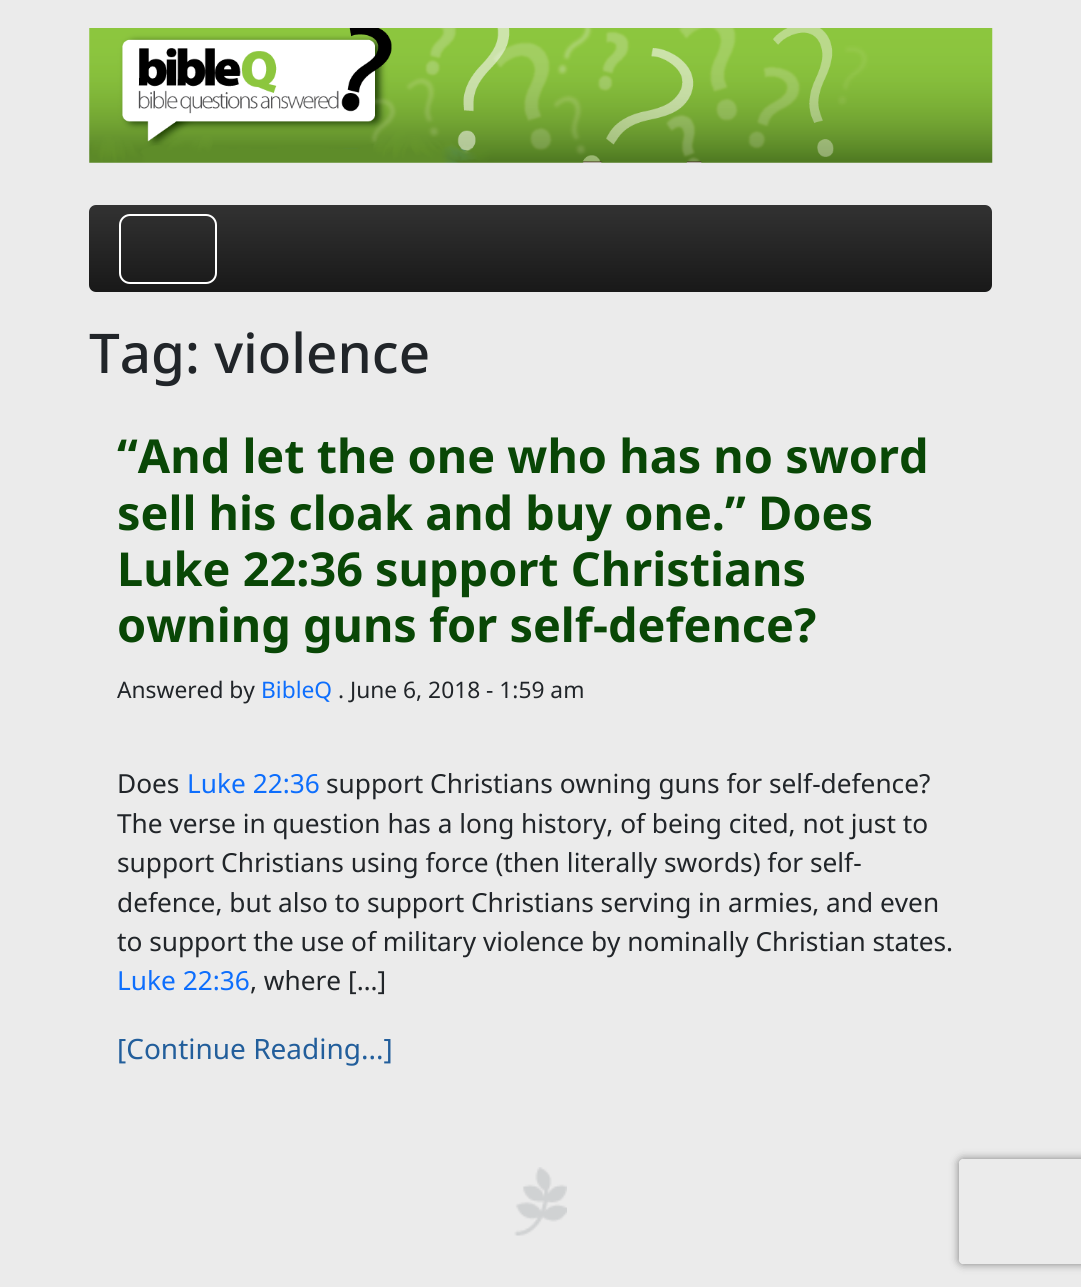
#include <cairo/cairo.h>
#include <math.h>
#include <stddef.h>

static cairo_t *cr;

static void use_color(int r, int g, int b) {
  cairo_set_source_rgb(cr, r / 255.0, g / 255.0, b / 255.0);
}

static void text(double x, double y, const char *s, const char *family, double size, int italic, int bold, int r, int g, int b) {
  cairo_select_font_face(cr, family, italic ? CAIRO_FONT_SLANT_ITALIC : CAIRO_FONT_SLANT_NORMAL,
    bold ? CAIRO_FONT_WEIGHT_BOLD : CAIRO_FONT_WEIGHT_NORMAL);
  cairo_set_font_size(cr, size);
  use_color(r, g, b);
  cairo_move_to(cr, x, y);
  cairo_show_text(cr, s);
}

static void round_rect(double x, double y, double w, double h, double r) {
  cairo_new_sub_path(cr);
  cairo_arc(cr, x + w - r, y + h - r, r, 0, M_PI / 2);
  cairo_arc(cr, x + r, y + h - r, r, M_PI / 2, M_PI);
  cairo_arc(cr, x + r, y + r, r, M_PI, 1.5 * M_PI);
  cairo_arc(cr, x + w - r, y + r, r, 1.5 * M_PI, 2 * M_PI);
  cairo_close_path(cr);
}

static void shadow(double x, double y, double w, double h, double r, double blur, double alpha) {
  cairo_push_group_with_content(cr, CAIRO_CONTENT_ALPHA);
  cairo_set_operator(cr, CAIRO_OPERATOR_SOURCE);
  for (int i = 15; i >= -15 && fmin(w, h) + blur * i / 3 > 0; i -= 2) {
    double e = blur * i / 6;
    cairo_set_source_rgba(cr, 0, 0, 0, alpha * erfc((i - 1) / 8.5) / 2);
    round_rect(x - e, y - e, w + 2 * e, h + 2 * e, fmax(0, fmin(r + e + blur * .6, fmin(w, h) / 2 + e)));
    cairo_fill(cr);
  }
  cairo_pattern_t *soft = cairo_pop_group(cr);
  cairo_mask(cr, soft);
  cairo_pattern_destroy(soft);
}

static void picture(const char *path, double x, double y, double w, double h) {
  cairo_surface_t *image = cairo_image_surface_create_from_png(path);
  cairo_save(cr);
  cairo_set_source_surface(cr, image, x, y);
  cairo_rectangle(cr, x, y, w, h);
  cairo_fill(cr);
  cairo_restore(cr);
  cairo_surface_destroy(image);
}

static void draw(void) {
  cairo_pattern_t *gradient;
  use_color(235, 235, 235);
  cairo_paint(cr);
  picture("img_01.png", 89, 28, 904, 135);
  use_color(248, 249, 250);
  round_rect(89, 205, 903, 87, 7);
  cairo_fill(cr);
  gradient = cairo_pattern_create_linear(541, 205, 541, 292);
  cairo_pattern_add_color_stop_rgba(gradient, 0, 0, 0, 0, 0.8);
  cairo_pattern_add_color_stop_rgba(gradient, 1, 0, 0, 0, 0.9);
  cairo_set_source(cr, gradient);
  cairo_pattern_destroy(gradient);
  round_rect(89, 205, 903, 87, 7);
  cairo_fill(cr);
  round_rect(120, 215, 96, 68, 10);
  use_color(255, 255, 255);
  cairo_stroke(cr);
  picture("img_02.png", 514, 1167, 53, 69);
  cairo_save(cr);
  cairo_set_fill_rule(cr, CAIRO_FILL_RULE_EVEN_ODD);
  cairo_new_path(cr);
  cairo_move_to(cr, 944, 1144);
  cairo_line_to(cr, 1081, 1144);
  cairo_line_to(cr, 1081, 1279);
  cairo_line_to(cr, 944, 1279);
  cairo_close_path(cr);
  cairo_move_to(cr, 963, 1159);
  cairo_line_to(cr, 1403, 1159);
  cairo_curve_to(cr, 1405, 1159, 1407, 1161, 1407, 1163);
  cairo_line_to(cr, 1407, 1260);
  cairo_curve_to(cr, 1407, 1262, 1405, 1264, 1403, 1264);
  cairo_line_to(cr, 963, 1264);
  cairo_curve_to(cr, 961, 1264, 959, 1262, 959, 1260);
  cairo_line_to(cr, 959, 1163);
  cairo_curve_to(cr, 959, 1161, 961, 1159, 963, 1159);
  cairo_close_path(cr);
  cairo_clip(cr);
  use_color(128, 128, 128);
  shadow(959, 1159, 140, 105, 4, 4.5, 1);
  cairo_restore(cr);
  text(89, 373, "Tag: violence", "Noto Sans Medium", 54.75, 0, 0, 33, 37, 41);
  text(117, 473, "“And let the one who has no sword", "Noto Sans", 46.8, 0, 1, 9, 71, 6);
  text(117, 530, "sell his cloak and buy one.” Does", "Noto Sans", 46.8, 0, 1, 9, 71, 6);
  text(117, 586, "Luke 22:36 support Christians", "Noto Sans", 46.8, 0, 1, 9, 71, 6);
  text(117, 642, "owning guns for self-defence?", "Noto Sans", 46.8, 0, 1, 9, 71, 6);
  text(117, 698, "Answered by", "Noto Sans", 22.75, 0, 0, 33, 37, 41);
  text(261, 698, "BibleQ", "Noto Sans", 22.75, 0, 0, 13, 110, 253);
  text(338, 698, ". June 6, 2018 - 1:59 am", "Noto Sans", 22.75, 0, 0, 33, 37, 41);
  text(117, 793, "Does", "Noto Sans", 26.25, 0, 0, 33, 37, 41);
  text(187, 793, "Luke 22:36", "Noto Sans", 26.25, 0, 0, 13, 110, 253);
  text(326, 793, "support Christians owning guns for self-defence?", "Noto Sans", 26.25, 0, 0, 33, 37, 41);
  text(117, 833, "The verse in question has a long history, of being cited, not just to", "Noto Sans", 26.25, 0, 0, 33, 37, 41);
  text(117, 872, "support Christians using force (then literally swords) for self-", "Noto Sans", 26.25, 0, 0, 33, 37, 41);
  text(117, 912, "defence, but also to support Christians serving in armies, and even", "Noto Sans", 26.25, 0, 0, 33, 37, 41);
  text(117, 951, "to support the use of military violence by nominally Christian states.", "Noto Sans", 26.25, 0, 0, 33, 37, 41);
  text(117, 990, "Luke 22:36", "Noto Sans", 26.25, 0, 0, 13, 110, 253);
  text(250, 990, ", where […]", "Noto Sans", 26.25, 0, 0, 33, 37, 41);
  text(117, 1059, "[Continue Reading...]", "Noto Sans", 28, 0, 0, 34, 94, 155);
}

int main(void) {
  cairo_surface_t *surface = cairo_image_surface_create(CAIRO_FORMAT_RGB24, 1081, 1287);
  cr = cairo_create(surface);
  cairo_font_options_t *options = cairo_font_options_create();
  cairo_font_options_set_hint_metrics(options, CAIRO_HINT_METRICS_OFF);
  cairo_font_options_set_hint_style(options, CAIRO_HINT_STYLE_NONE);
  cairo_set_font_options(cr, options);
  cairo_set_miter_limit(cr, 4);
  draw();
  cairo_surface_write_to_png(surface, "out.png");
  cairo_font_options_destroy(options);
  cairo_destroy(cr);
  cairo_surface_destroy(surface);
  return 0;
}
